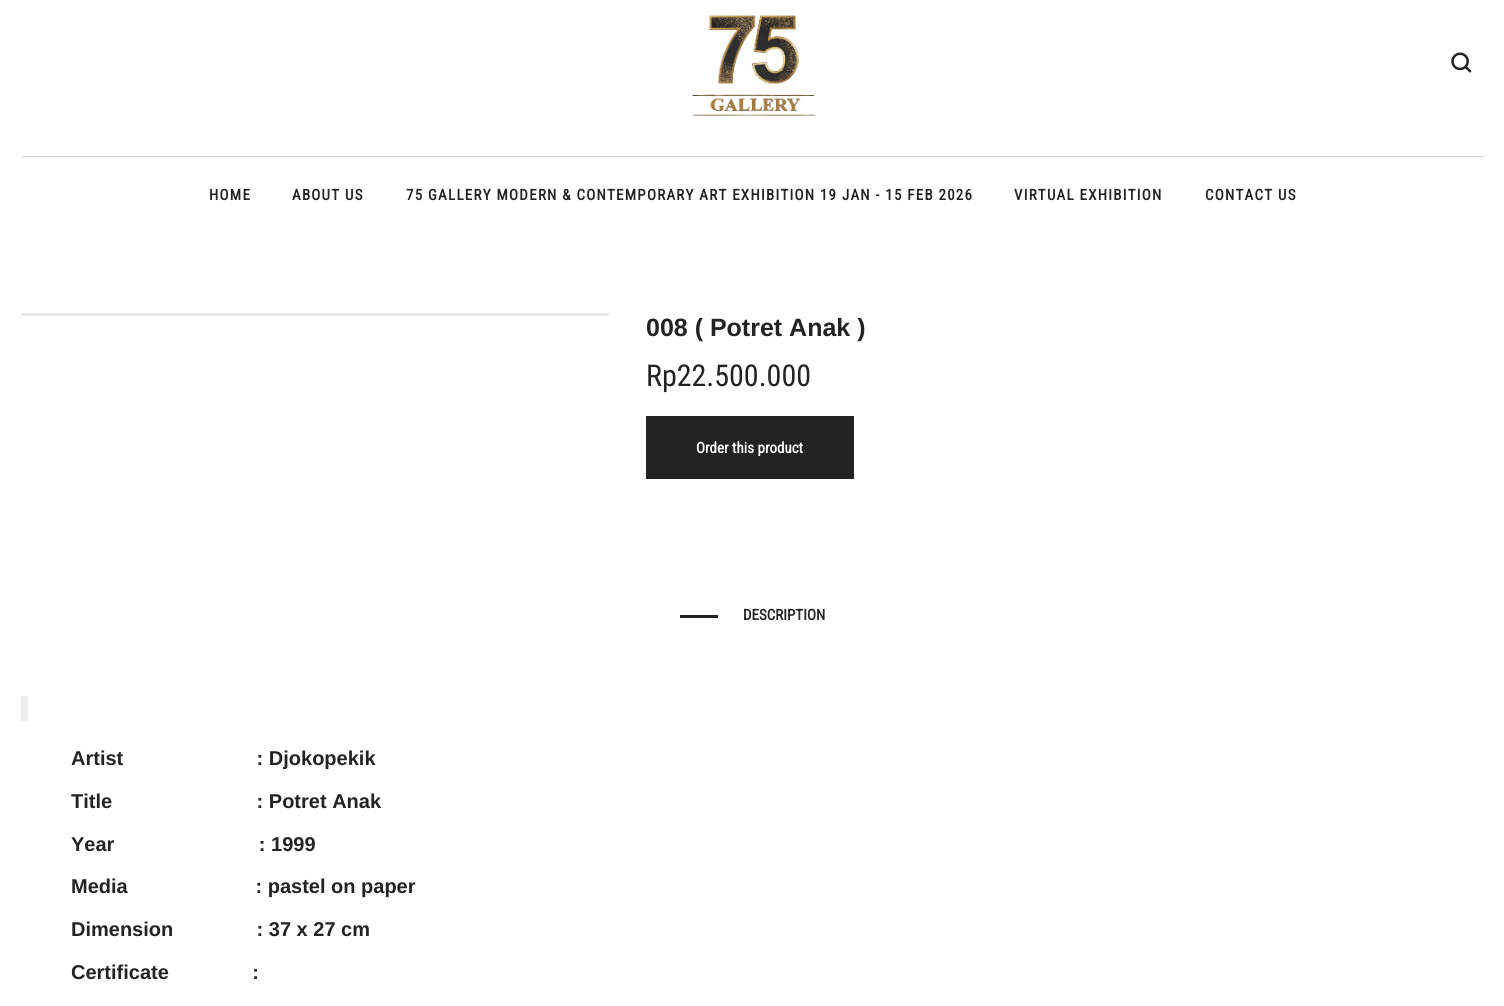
#include <cairo/cairo.h>
#include <math.h>
#include <stddef.h>

static cairo_t *cr;

static void use_color(int r, int g, int b) {
  cairo_set_source_rgb(cr, r / 255.0, g / 255.0, b / 255.0);
}

static void text(double x, double y, const char *s, const char *family, double size, int italic, int bold, int r, int g, int b) {
  cairo_select_font_face(cr, family, italic ? CAIRO_FONT_SLANT_ITALIC : CAIRO_FONT_SLANT_NORMAL,
    bold ? CAIRO_FONT_WEIGHT_BOLD : CAIRO_FONT_WEIGHT_NORMAL);
  cairo_set_font_size(cr, size);
  use_color(r, g, b);
  cairo_move_to(cr, x, y);
  cairo_show_text(cr, s);
}

static void spaced_text(double x, double y, const char *s, double letter, double word) {
  cairo_move_to(cr, x, y);
  while (*s) {
    char ch[5] = {0};
    int n = 0;
    do ch[n++] = *s++; while ((*s & 0xC0) == 0x80);
    cairo_show_text(cr, ch);
    cairo_rel_move_to(cr, letter + word * (*ch == ' '), 0);
  }
}

static void box(double x, double y, double w, double h, int r, int g, int b) {
  use_color(r, g, b);
  cairo_rectangle(cr, x, y, w, h);
  cairo_fill(cr);
}

static void picture(const char *path, double x, double y, double w, double h) {
  cairo_surface_t *image = cairo_image_surface_create_from_png(path);
  cairo_save(cr);
  cairo_set_source_surface(cr, image, x, y);
  cairo_rectangle(cr, x, y, w, h);
  cairo_fill(cr);
  cairo_restore(cr);
  cairo_surface_destroy(image);
}

static void draw(void) {
  use_color(255, 255, 255);
  cairo_paint(cr);
  picture("img_01.png", 692, 15, 124, 101);
  picture("img_02.png", 1451, 52, 21, 21);
  box(21, 156, 1463, 1, 214, 215, 215);
  box(21, 313, 588, 3, 232, 232, 232);
  box(646, 416, 208, 63, 35, 35, 36);
  box(680, 615, 38, 3, 35, 35, 36);
  box(21, 696, 7, 25, 238, 238, 238);
  cairo_select_font_face(cr, "Roboto Condensed", CAIRO_FONT_SLANT_NORMAL, CAIRO_FONT_WEIGHT_BOLD);
  cairo_set_font_size(cr, 15);
  use_color(35, 35, 36);
  spaced_text(209, 200, "HOME", 1.25, 0);
  spaced_text(292, 200, "ABOUT US", 1.25, 0);
  spaced_text(406, 200, "75 GALLERY MODERN & CONTEMPORARY ART EXHIBITION 19 JAN - 15 FEB 2026", 1.25, 0);
  spaced_text(1014, 200, "VIRTUAL EXHIBITION", 1.25, 0);
  spaced_text(1205, 200, "CONTACT US", 1.25, 0);
  text(646, 336, "008 ( Potret Anak )", "Liberation Sans", 25, 0, 1, 35, 35, 36);
  text(646, 386, "Rp22.500.000", "Roboto Condensed", 30, 0, 0, 35, 35, 36);
  text(696, 453, "Order this product", "Roboto Condensed", 15, 0, 1, 255, 255, 255);
  text(743, 620, "DESCRIPTION", "Roboto Condensed", 15, 0, 1, 35, 35, 36);
  text(71, 765, "Artist                        : Djokopekik", "Liberation Sans", 20, 0, 1, 35, 35, 36);
  text(71, 808, "Title                          : Potret Anak", "Liberation Sans", 20, 0, 1, 35, 35, 36);
  text(71, 851, "Year                          : 1999", "Liberation Sans", 20, 0, 1, 35, 35, 36);
  text(71, 893, "Media                       : pastel on paper", "Liberation Sans", 20, 0, 1, 35, 35, 36);
  text(71, 936, "Dimension               : 37 x 27 cm", "Liberation Sans", 20, 0, 1, 35, 35, 36);
  text(71, 979, "Certificate               :", "Liberation Sans", 20, 0, 1, 35, 35, 36);
}

int main(void) {
  cairo_surface_t *surface = cairo_image_surface_create(CAIRO_FORMAT_RGB24, 1504, 1006);
  cr = cairo_create(surface);
  cairo_font_options_t *options = cairo_font_options_create();
  cairo_font_options_set_hint_metrics(options, CAIRO_HINT_METRICS_OFF);
  cairo_font_options_set_hint_style(options, CAIRO_HINT_STYLE_NONE);
  cairo_set_font_options(cr, options);
  cairo_set_miter_limit(cr, 4);
  draw();
  cairo_surface_write_to_png(surface, "out.png");
  cairo_font_options_destroy(options);
  cairo_destroy(cr);
  cairo_surface_destroy(surface);
  return 0;
}
